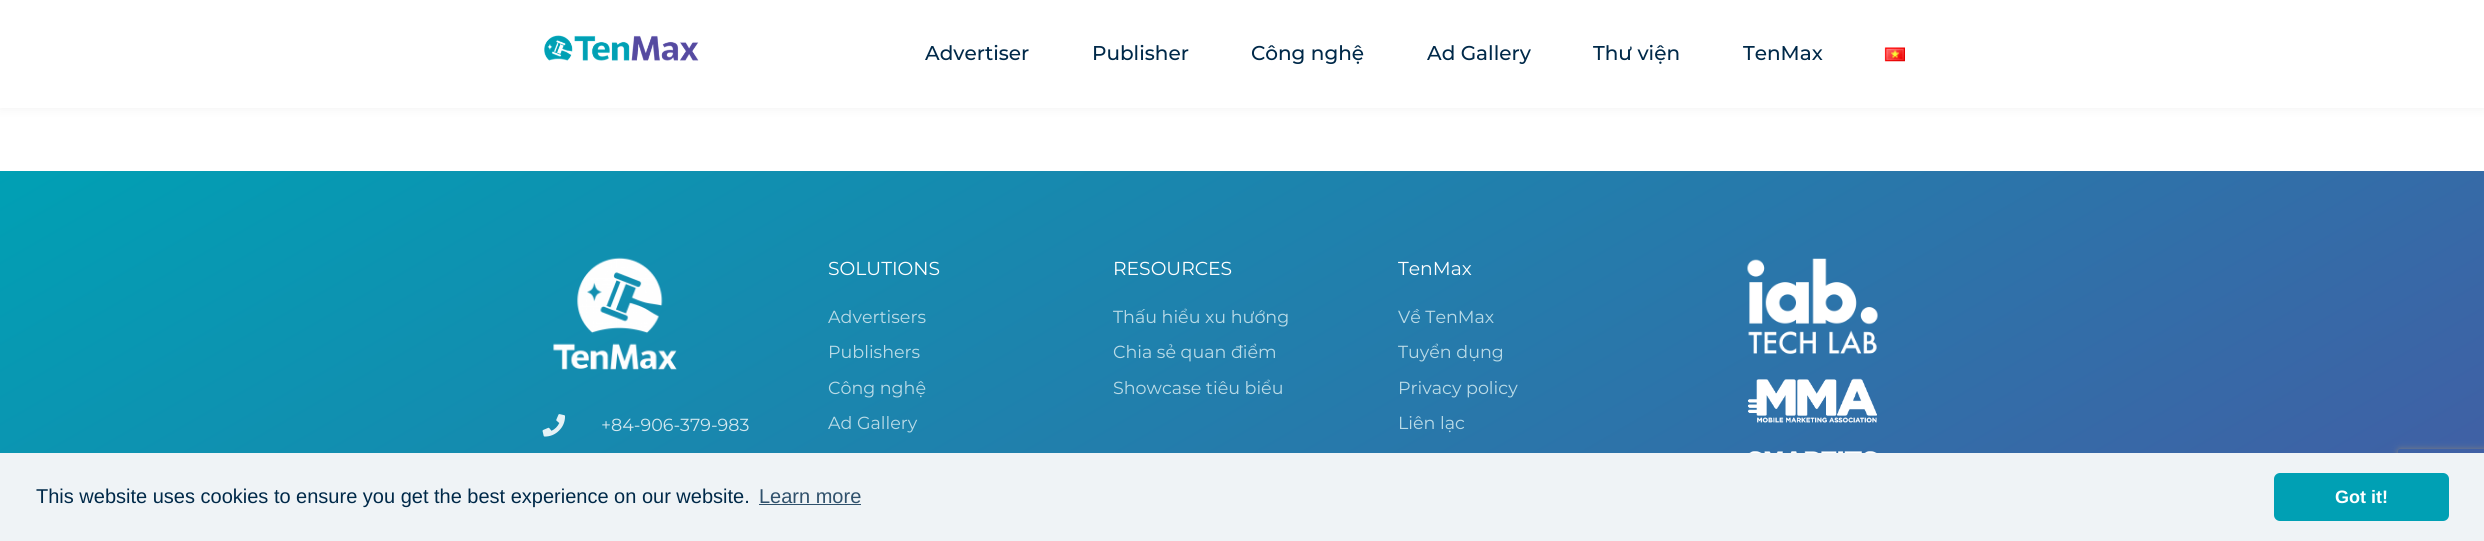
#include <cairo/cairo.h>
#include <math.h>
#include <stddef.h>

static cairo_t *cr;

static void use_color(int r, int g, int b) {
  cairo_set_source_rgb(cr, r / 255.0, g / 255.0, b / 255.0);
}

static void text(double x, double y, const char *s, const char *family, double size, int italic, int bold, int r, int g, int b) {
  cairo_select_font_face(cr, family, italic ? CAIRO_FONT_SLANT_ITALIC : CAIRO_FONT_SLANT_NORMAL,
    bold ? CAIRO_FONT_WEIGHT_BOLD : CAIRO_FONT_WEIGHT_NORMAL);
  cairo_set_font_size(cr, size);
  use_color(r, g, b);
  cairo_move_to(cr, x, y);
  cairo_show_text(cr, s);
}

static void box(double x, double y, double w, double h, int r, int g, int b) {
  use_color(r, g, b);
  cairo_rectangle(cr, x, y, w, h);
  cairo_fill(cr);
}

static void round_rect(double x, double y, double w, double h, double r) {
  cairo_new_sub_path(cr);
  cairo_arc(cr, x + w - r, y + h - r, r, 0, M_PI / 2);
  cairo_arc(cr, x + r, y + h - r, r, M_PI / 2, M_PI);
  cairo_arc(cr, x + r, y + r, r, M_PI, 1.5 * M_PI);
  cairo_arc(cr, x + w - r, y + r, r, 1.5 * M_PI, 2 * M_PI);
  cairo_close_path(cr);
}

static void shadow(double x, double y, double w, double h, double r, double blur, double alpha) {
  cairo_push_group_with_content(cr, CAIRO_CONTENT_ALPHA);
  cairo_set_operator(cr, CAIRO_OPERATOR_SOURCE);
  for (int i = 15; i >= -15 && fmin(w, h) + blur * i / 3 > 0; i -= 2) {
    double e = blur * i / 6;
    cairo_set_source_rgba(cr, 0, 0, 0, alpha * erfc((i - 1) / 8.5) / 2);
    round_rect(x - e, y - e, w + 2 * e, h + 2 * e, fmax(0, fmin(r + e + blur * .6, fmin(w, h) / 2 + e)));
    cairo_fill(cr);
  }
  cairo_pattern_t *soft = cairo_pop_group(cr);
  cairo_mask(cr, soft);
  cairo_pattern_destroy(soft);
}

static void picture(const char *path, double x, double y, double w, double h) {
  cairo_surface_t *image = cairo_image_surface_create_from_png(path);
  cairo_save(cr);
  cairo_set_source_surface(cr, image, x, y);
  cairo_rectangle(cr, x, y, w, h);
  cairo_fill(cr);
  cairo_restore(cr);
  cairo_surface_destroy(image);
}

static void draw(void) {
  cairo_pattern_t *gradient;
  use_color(255, 255, 255);
  cairo_paint(cr);
  use_color(0, 0, 0);
  shadow(0, 0, 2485, 108, 0, 6, 0.06);
  box(0, 0, 2484, 108, 255, 255, 255);
  picture("img_01.png", 544, 35, 155, 26);
  picture("img_02.png", 1884, 47, 21, 15);
  gradient = cairo_pattern_create_linear(749, -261, 1736, 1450);
  cairo_pattern_add_color_stop_rgba(gradient, 0, 0, 0.627, 0.706, 1);
  cairo_pattern_add_color_stop_rgba(gradient, 1, 0.333, 0.294, 0.627, 1);
  cairo_set_source(cr, gradient);
  cairo_pattern_destroy(gradient);
  cairo_rectangle(cr, 0, 171, 2484, 282);
  cairo_fill(cr);
  picture("img_03.png", 553, 257, 124, 113);
  picture("img_04.png", 542, 414, 23, 23);
  picture("img_05.png", 1747, 258, 131, 96);
  picture("img_06.png", 1747, 378, 130, 45);
  picture("img_07.png", 1749, 451, 128, 2);
  cairo_save(cr);
  cairo_set_fill_rule(cr, CAIRO_FILL_RULE_EVEN_ODD);
  cairo_new_path(cr);
  cairo_move_to(cr, 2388, 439);
  cairo_line_to(cr, 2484, 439);
  cairo_line_to(cr, 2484, 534);
  cairo_line_to(cr, 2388, 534);
  cairo_close_path(cr);
  cairo_move_to(cr, 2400.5, 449);
  cairo_line_to(cr, 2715.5, 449);
  cairo_curve_to(cr, 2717, 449, 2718, 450, 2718, 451.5);
  cairo_line_to(cr, 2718, 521.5);
  cairo_curve_to(cr, 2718, 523, 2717, 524, 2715.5, 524);
  cairo_line_to(cr, 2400.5, 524);
  cairo_curve_to(cr, 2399, 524, 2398, 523, 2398, 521.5);
  cairo_line_to(cr, 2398, 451.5);
  cairo_curve_to(cr, 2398, 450, 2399, 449, 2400.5, 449);
  cairo_close_path(cr);
  cairo_clip(cr);
  use_color(128, 128, 128);
  shadow(2398, 449, 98, 75, 2.5, 3, 1);
  cairo_restore(cr);
  box(0, 453, 2484, 88, 239, 243, 246);
  box(759, 504, 102, 1, 48, 81, 108);
  use_color(0, 160, 180);
  round_rect(2274, 473, 175, 48, 6);
  cairo_fill(cr);
  text(925, 60, "Advertiser", "Montserrat Medium", 20, 0, 0, 0, 41, 73);
  text(1092, 60, "Publisher", "Montserrat Medium", 20, 0, 0, 0, 41, 73);
  text(1251, 60, "Công nghệ", "Montserrat Medium", 20, 0, 0, 0, 41, 73);
  text(1427, 60, "Ad Gallery", "Montserrat Medium", 20, 0, 0, 0, 41, 73);
  text(1593, 60, "Thư viện", "Montserrat Medium", 20, 0, 0, 0, 41, 73);
  text(1743, 60, "TenMax", "Montserrat Medium", 20, 0, 0, 0, 41, 73);
  text(601, 431, "+84-906-379-983", "Montserrat", 17.5, 0, 0, 209, 231, 239);
  text(828, 275, "SOLUTIONS", "Montserrat", 18.75, 0, 0, 255, 255, 255);
  text(828, 323, "Advertisers", "Montserrat", 17.5, 0, 0, 186, 219, 231);
  text(828, 358, "Publishers", "Montserrat", 17.5, 0, 0, 186, 219, 231);
  text(828, 394, "Công nghệ", "Montserrat", 17.5, 0, 0, 186, 219, 231);
  text(828, 429, "Ad Gallery", "Montserrat", 17.5, 0, 0, 186, 219, 231);
  text(1113, 275, "RESOURCES", "Montserrat", 18.75, 0, 0, 255, 255, 255);
  text(1113, 323, "Thấu hiểu xu hướng", "Montserrat", 17.5, 0, 0, 186, 219, 231);
  text(1113, 358, "Chia sẻ quan điểm", "Montserrat", 17.5, 0, 0, 186, 219, 231);
  text(1113, 394, "Showcase tiêu biểu", "Montserrat", 17.5, 0, 0, 186, 219, 231);
  text(1398, 275, "TenMax", "Montserrat", 18.75, 0, 0, 255, 255, 255);
  text(1398, 323, "Về TenMax", "Montserrat", 17.5, 0, 0, 186, 219, 231);
  text(1398, 358, "Tuyển dụng", "Montserrat", 17.5, 0, 0, 186, 219, 231);
  text(1398, 394, "Privacy policy", "Montserrat", 17.5, 0, 0, 186, 219, 231);
  text(1398, 429, "Liên lạc", "Montserrat", 17.5, 0, 0, 186, 219, 231);
  text(36, 503, "This website uses cookies to ensure you get the best experience on our website.", "Liberation Sans", 20, 0, 0, 0, 41, 73);
  text(759, 503, "Learn more", "Liberation Sans", 20, 0, 0, 48, 81, 108);
  text(2335, 503, "Got it!", "Liberation Sans", 18, 0, 1, 255, 255, 255);
}

int main(void) {
  cairo_surface_t *surface = cairo_image_surface_create(CAIRO_FORMAT_RGB24, 2484, 541);
  cr = cairo_create(surface);
  cairo_font_options_t *options = cairo_font_options_create();
  cairo_font_options_set_hint_metrics(options, CAIRO_HINT_METRICS_OFF);
  cairo_font_options_set_hint_style(options, CAIRO_HINT_STYLE_NONE);
  cairo_set_font_options(cr, options);
  cairo_set_miter_limit(cr, 4);
  draw();
  cairo_surface_write_to_png(surface, "out.png");
  cairo_font_options_destroy(options);
  cairo_destroy(cr);
  cairo_surface_destroy(surface);
  return 0;
}
